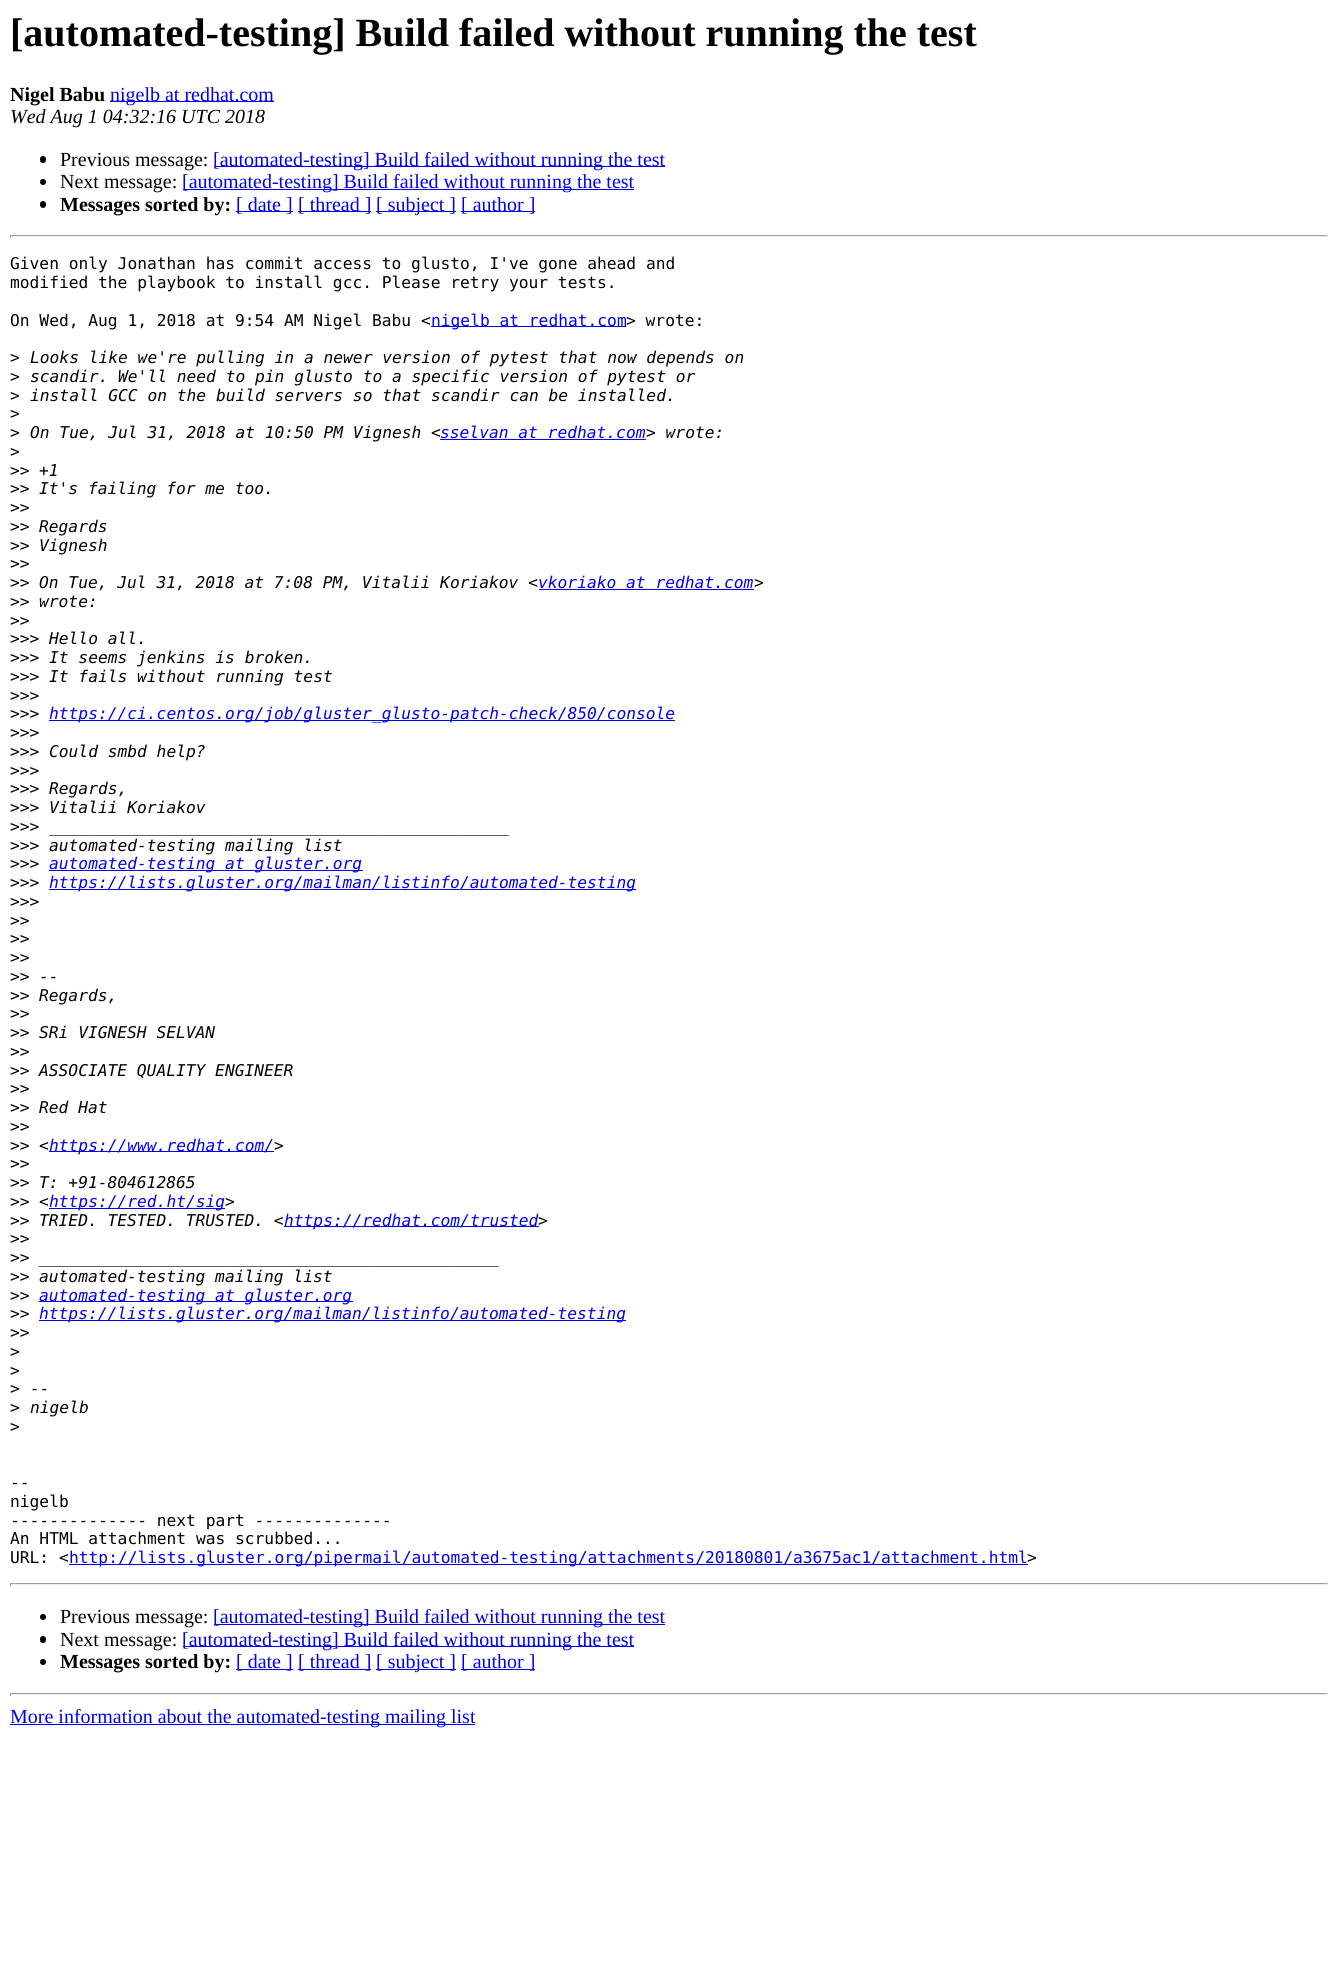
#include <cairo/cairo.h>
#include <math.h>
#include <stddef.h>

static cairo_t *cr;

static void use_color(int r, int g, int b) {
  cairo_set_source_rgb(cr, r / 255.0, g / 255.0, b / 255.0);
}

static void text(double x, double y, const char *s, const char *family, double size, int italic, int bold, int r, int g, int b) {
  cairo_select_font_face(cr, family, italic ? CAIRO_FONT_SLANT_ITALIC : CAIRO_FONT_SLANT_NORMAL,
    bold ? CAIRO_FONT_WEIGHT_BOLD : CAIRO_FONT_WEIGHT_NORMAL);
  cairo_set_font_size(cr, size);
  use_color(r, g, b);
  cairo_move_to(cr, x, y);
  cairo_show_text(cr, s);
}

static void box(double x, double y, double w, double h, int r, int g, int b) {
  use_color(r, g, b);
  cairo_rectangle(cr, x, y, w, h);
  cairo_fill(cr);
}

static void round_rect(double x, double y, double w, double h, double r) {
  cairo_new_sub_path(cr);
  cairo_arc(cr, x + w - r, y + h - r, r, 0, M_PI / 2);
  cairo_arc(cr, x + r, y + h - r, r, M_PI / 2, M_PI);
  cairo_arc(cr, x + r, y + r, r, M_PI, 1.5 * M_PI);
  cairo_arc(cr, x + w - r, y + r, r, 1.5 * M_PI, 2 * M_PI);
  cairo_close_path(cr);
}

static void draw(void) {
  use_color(255, 255, 255);
  cairo_paint(cr);
  box(110, 101, 164, 1, 0, 0, 238);
  use_color(0, 0, 0);
  round_rect(40, 156, 6, 7, 3);
  cairo_fill(cr);
  box(214, 166, 451, 1, 0, 0, 238);
  use_color(0, 0, 0);
  cairo_arc(cr, 43, 182, 3, 0, 2 * M_PI);
  cairo_fill(cr);
  box(183, 189, 451, 1, 0, 0, 238);
  use_color(0, 0, 0);
  round_rect(40, 201, 6, 7, 3);
  cairo_fill(cr);
  box(236, 211, 57, 1, 0, 0, 238);
  box(298, 211, 73, 1, 0, 0, 238);
  box(376, 211, 80, 1, 0, 0, 238);
  box(461, 211, 74, 1, 0, 0, 238);
  box(10, 235, 1318, 1, 159, 159, 159);
  box(1326, 235, 1, 3, 238, 238, 238);
  box(10, 236, 1318, 1, 238, 238, 238);
  box(10, 235, 1, 3, 159, 159, 159);
  box(431, 326, 195, 1, 0, 0, 238);
  box(440, 439, 206, 1, 0, 0, 238);
  box(539, 589, 215, 1, 0, 0, 238);
  box(49, 720, 626, 1, 0, 0, 238);
  box(49, 870, 314, 1, 0, 0, 238);
  box(49, 889, 587, 1, 0, 0, 238);
  box(49, 1151, 225, 1, 0, 0, 238);
  box(49, 1208, 176, 1, 0, 0, 238);
  box(284, 1226, 255, 1, 0, 0, 238);
  box(39, 1301, 314, 1, 0, 0, 238);
  box(39, 1320, 587, 1, 0, 0, 238);
  box(69, 1564, 959, 1, 0, 0, 238);
  box(10, 1583, 1318, 1, 159, 159, 159);
  box(1326, 1583, 1, 3, 238, 238, 238);
  box(10, 1584, 1318, 1, 238, 238, 238);
  box(10, 1583, 1, 3, 159, 159, 159);
  use_color(0, 0, 0);
  cairo_arc(cr, 43, 1617, 3, 0, 2 * M_PI);
  cairo_fill(cr);
  box(214, 1624, 451, 1, 0, 0, 238);
  use_color(0, 0, 0);
  round_rect(40, 1636, 6, 7, 3);
  cairo_fill(cr);
  box(183, 1646, 451, 1, 0, 0, 238);
  use_color(0, 0, 0);
  cairo_arc(cr, 43, 1662, 3, 0, 2 * M_PI);
  cairo_fill(cr);
  box(236, 1669, 57, 1, 0, 0, 238);
  box(298, 1669, 73, 1, 0, 0, 238);
  box(376, 1669, 80, 1, 0, 0, 238);
  box(461, 1669, 74, 1, 0, 0, 238);
  box(10, 1693, 1318, 1, 159, 159, 159);
  box(1326, 1693, 1, 3, 238, 238, 238);
  box(10, 1694, 1318, 1, 238, 238, 238);
  box(10, 1693, 1, 3, 159, 159, 159);
  box(10, 1724, 465, 1, 0, 0, 238);
  text(10, 46, "[automated-testing] Build failed without running the test", "Liberation Serif", 40, 0, 1, 0, 0, 0);
  text(10, 101, "Nigel Babu", "Liberation Serif", 20, 0, 1, 0, 0, 0);
  text(110, 101, "nigelb at redhat.com", "Liberation Serif", 20, 0, 0, 0, 0, 238);
  text(10, 123, "Wed Aug 1 04:32:16 UTC 2018", "Liberation Serif", 20, 1, 0, 0, 0, 0);
  text(60, 166, "Previous message:", "Liberation Serif", 20, 0, 0, 0, 0, 0);
  text(213, 166, "[automated-testing] Build failed without running the test", "Liberation Serif", 20, 0, 0, 0, 0, 238);
  text(60, 188, "Next message:", "Liberation Serif", 20, 0, 0, 0, 0, 0);
  text(182, 188, "[automated-testing] Build failed without running the test", "Liberation Serif", 20, 0, 0, 0, 0, 238);
  text(60, 211, "Messages sorted by:", "Liberation Serif", 20, 0, 1, 0, 0, 0);
  text(236, 211, "[ date ]", "Liberation Serif", 20, 0, 0, 0, 0, 238);
  text(298, 211, "[ thread ]", "Liberation Serif", 20, 0, 0, 0, 0, 238);
  text(376, 211, "[ subject ]", "Liberation Serif", 20, 0, 0, 0, 0, 238);
  text(461, 211, "[ author ]", "Liberation Serif", 20, 0, 0, 0, 0, 238);
  text(10, 269, "Given only Jonathan has commit access to glusto, I've gone ahead and", "DejaVu Sans Mono", 16.25, 0, 0, 0, 0, 0);
  text(10, 288, "modified the playbook to install gcc. Please retry your tests.", "DejaVu Sans Mono", 16.25, 0, 0, 0, 0, 0);
  text(10, 326, "On Wed, Aug 1, 2018 at 9:54 AM Nigel Babu <", "DejaVu Sans Mono", 16.25, 0, 0, 0, 0, 0);
  text(431, 326, "nigelb at redhat.com", "DejaVu Sans Mono", 16.25, 0, 0, 0, 0, 238);
  text(626, 326, "> wrote:", "DejaVu Sans Mono", 16.25, 0, 0, 0, 0, 0);
  text(10, 363, ">", "DejaVu Sans Mono", 16.25, 0, 0, 0, 0, 0);
  text(30, 363, "Looks like we're pulling in a newer version of pytest that now depends on", "DejaVu Sans Mono", 16.25, 1, 0, 0, 0, 0);
  text(10, 382, ">", "DejaVu Sans Mono", 16.25, 0, 0, 0, 0, 0);
  text(30, 382, "scandir. We'll need to pin glusto to a specific version of pytest or", "DejaVu Sans Mono", 16.25, 1, 0, 0, 0, 0);
  text(10, 401, ">", "DejaVu Sans Mono", 16.25, 0, 0, 0, 0, 0);
  text(30, 401, "install GCC on the build servers so that scandir can be installed.", "DejaVu Sans Mono", 16.25, 1, 0, 0, 0, 0);
  text(10, 419, ">", "DejaVu Sans Mono", 16.25, 0, 0, 0, 0, 0);
  text(10, 438, ">", "DejaVu Sans Mono", 16.25, 0, 0, 0, 0, 0);
  text(30, 438, "On Tue, Jul 31, 2018 at 10:50 PM Vignesh <", "DejaVu Sans Mono", 16.25, 1, 0, 0, 0, 0);
  text(440, 438, "sselvan at redhat.com", "DejaVu Sans Mono", 16.25, 1, 0, 0, 0, 238);
  text(646, 438, "> wrote:", "DejaVu Sans Mono", 16.25, 1, 0, 0, 0, 0);
  text(10, 457, ">", "DejaVu Sans Mono", 16.25, 0, 0, 0, 0, 0);
  text(10, 476, ">>", "DejaVu Sans Mono", 16.25, 0, 0, 0, 0, 0);
  text(39, 476, "+1", "DejaVu Sans Mono", 16.25, 1, 0, 0, 0, 0);
  text(10, 494, ">>", "DejaVu Sans Mono", 16.25, 0, 0, 0, 0, 0);
  text(39, 494, "It's failing for me too.", "DejaVu Sans Mono", 16.25, 1, 0, 0, 0, 0);
  text(10, 513, ">>", "DejaVu Sans Mono", 16.25, 0, 0, 0, 0, 0);
  text(10, 532, ">>", "DejaVu Sans Mono", 16.25, 0, 0, 0, 0, 0);
  text(39, 532, "Regards", "DejaVu Sans Mono", 16.25, 1, 0, 0, 0, 0);
  text(10, 551, ">>", "DejaVu Sans Mono", 16.25, 0, 0, 0, 0, 0);
  text(39, 551, "Vignesh", "DejaVu Sans Mono", 16.25, 1, 0, 0, 0, 0);
  text(10, 569, ">>", "DejaVu Sans Mono", 16.25, 0, 0, 0, 0, 0);
  text(10, 588, ">>", "DejaVu Sans Mono", 16.25, 0, 0, 0, 0, 0);
  text(39, 588, "On Tue, Jul 31, 2018 at 7:08 PM, Vitalii Koriakov <", "DejaVu Sans Mono", 16.25, 1, 0, 0, 0, 0);
  text(538, 588, "vkoriako at redhat.com", "DejaVu Sans Mono", 16.25, 1, 0, 0, 0, 238);
  text(754, 588, ">", "DejaVu Sans Mono", 16.25, 1, 0, 0, 0, 0);
  text(10, 607, ">>", "DejaVu Sans Mono", 16.25, 0, 0, 0, 0, 0);
  text(39, 607, "wrote:", "DejaVu Sans Mono", 16.25, 1, 0, 0, 0, 0);
  text(10, 626, ">>", "DejaVu Sans Mono", 16.25, 0, 0, 0, 0, 0);
  text(10, 644, ">>>", "DejaVu Sans Mono", 16.25, 0, 0, 0, 0, 0);
  text(49, 644, "Hello all.", "DejaVu Sans Mono", 16.25, 1, 0, 0, 0, 0);
  text(10, 663, ">>>", "DejaVu Sans Mono", 16.25, 0, 0, 0, 0, 0);
  text(49, 663, "It seems jenkins is broken.", "DejaVu Sans Mono", 16.25, 1, 0, 0, 0, 0);
  text(10, 682, ">>>", "DejaVu Sans Mono", 16.25, 0, 0, 0, 0, 0);
  text(49, 682, "It fails without running test", "DejaVu Sans Mono", 16.25, 1, 0, 0, 0, 0);
  text(10, 701, ">>>", "DejaVu Sans Mono", 16.25, 0, 0, 0, 0, 0);
  text(10, 719, ">>>", "DejaVu Sans Mono", 16.25, 0, 0, 0, 0, 0);
  text(49, 719, "https://ci.centos.org/job/gluster_glusto-patch-check/850/console", "DejaVu Sans Mono", 16.25, 1, 0, 0, 0, 238);
  text(10, 738, ">>>", "DejaVu Sans Mono", 16.25, 0, 0, 0, 0, 0);
  text(10, 757, ">>>", "DejaVu Sans Mono", 16.25, 0, 0, 0, 0, 0);
  text(49, 757, "Could smbd help?", "DejaVu Sans Mono", 16.25, 1, 0, 0, 0, 0);
  text(10, 776, ">>>", "DejaVu Sans Mono", 16.25, 0, 0, 0, 0, 0);
  text(10, 794, ">>>", "DejaVu Sans Mono", 16.25, 0, 0, 0, 0, 0);
  text(49, 794, "Regards,", "DejaVu Sans Mono", 16.25, 1, 0, 0, 0, 0);
  text(10, 813, ">>>", "DejaVu Sans Mono", 16.25, 0, 0, 0, 0, 0);
  text(49, 813, "Vitalii Koriakov", "DejaVu Sans Mono", 16.25, 1, 0, 0, 0, 0);
  text(10, 832, ">>>", "DejaVu Sans Mono", 16.25, 0, 0, 0, 0, 0);
  text(49, 832, "_______________________________________________", "DejaVu Sans Mono", 16.25, 1, 0, 0, 0, 0);
  text(10, 851, ">>>", "DejaVu Sans Mono", 16.25, 0, 0, 0, 0, 0);
  text(49, 851, "automated-testing mailing list", "DejaVu Sans Mono", 16.25, 1, 0, 0, 0, 0);
  text(10, 869, ">>>", "DejaVu Sans Mono", 16.25, 0, 0, 0, 0, 0);
  text(49, 869, "automated-testing at gluster.org", "DejaVu Sans Mono", 16.25, 1, 0, 0, 0, 238);
  text(10, 888, ">>>", "DejaVu Sans Mono", 16.25, 0, 0, 0, 0, 0);
  text(49, 888, "https://lists.gluster.org/mailman/listinfo/automated-testing", "DejaVu Sans Mono", 16.25, 1, 0, 0, 0, 238);
  text(10, 907, ">>>", "DejaVu Sans Mono", 16.25, 0, 0, 0, 0, 0);
  text(10, 926, ">>", "DejaVu Sans Mono", 16.25, 0, 0, 0, 0, 0);
  text(10, 944, ">>", "DejaVu Sans Mono", 16.25, 0, 0, 0, 0, 0);
  text(10, 963, ">>", "DejaVu Sans Mono", 16.25, 0, 0, 0, 0, 0);
  text(10, 982, ">>", "DejaVu Sans Mono", 16.25, 0, 0, 0, 0, 0);
  text(39, 982, "--", "DejaVu Sans Mono", 16.25, 1, 0, 0, 0, 0);
  text(10, 1001, ">>", "DejaVu Sans Mono", 16.25, 0, 0, 0, 0, 0);
  text(39, 1001, "Regards,", "DejaVu Sans Mono", 16.25, 1, 0, 0, 0, 0);
  text(10, 1019, ">>", "DejaVu Sans Mono", 16.25, 0, 0, 0, 0, 0);
  text(10, 1038, ">>", "DejaVu Sans Mono", 16.25, 0, 0, 0, 0, 0);
  text(39, 1038, "SRi VIGNESH SELVAN", "DejaVu Sans Mono", 16.25, 1, 0, 0, 0, 0);
  text(10, 1057, ">>", "DejaVu Sans Mono", 16.25, 0, 0, 0, 0, 0);
  text(10, 1076, ">>", "DejaVu Sans Mono", 16.25, 0, 0, 0, 0, 0);
  text(39, 1076, "ASSOCIATE QUALITY ENGINEER", "DejaVu Sans Mono", 16.25, 1, 0, 0, 0, 0);
  text(10, 1094, ">>", "DejaVu Sans Mono", 16.25, 0, 0, 0, 0, 0);
  text(10, 1113, ">>", "DejaVu Sans Mono", 16.25, 0, 0, 0, 0, 0);
  text(39, 1113, "Red Hat", "DejaVu Sans Mono", 16.25, 1, 0, 0, 0, 0);
  text(10, 1132, ">>", "DejaVu Sans Mono", 16.25, 0, 0, 0, 0, 0);
  text(10, 1151, ">>", "DejaVu Sans Mono", 16.25, 0, 0, 0, 0, 0);
  text(39, 1151, "<", "DejaVu Sans Mono", 16.25, 1, 0, 0, 0, 0);
  text(49, 1151, "https://www.redhat.com/", "DejaVu Sans Mono", 16.25, 1, 0, 0, 0, 238);
  text(274, 1151, ">", "DejaVu Sans Mono", 16.25, 1, 0, 0, 0, 0);
  text(10, 1169, ">>", "DejaVu Sans Mono", 16.25, 0, 0, 0, 0, 0);
  text(10, 1188, ">>", "DejaVu Sans Mono", 16.25, 0, 0, 0, 0, 0);
  text(39, 1188, "T: +91-804612865", "DejaVu Sans Mono", 16.25, 1, 0, 0, 0, 0);
  text(10, 1207, ">>", "DejaVu Sans Mono", 16.25, 0, 0, 0, 0, 0);
  text(39, 1207, "<", "DejaVu Sans Mono", 16.25, 1, 0, 0, 0, 0);
  text(49, 1207, "https://red.ht/sig", "DejaVu Sans Mono", 16.25, 1, 0, 0, 0, 238);
  text(225, 1207, ">", "DejaVu Sans Mono", 16.25, 1, 0, 0, 0, 0);
  text(10, 1226, ">>", "DejaVu Sans Mono", 16.25, 0, 0, 0, 0, 0);
  text(39, 1226, "TRIED. TESTED. TRUSTED. <", "DejaVu Sans Mono", 16.25, 1, 0, 0, 0, 0);
  text(284, 1226, "https://redhat.com/trusted", "DejaVu Sans Mono", 16.25, 1, 0, 0, 0, 238);
  text(538, 1226, ">", "DejaVu Sans Mono", 16.25, 1, 0, 0, 0, 0);
  text(10, 1244, ">>", "DejaVu Sans Mono", 16.25, 0, 0, 0, 0, 0);
  text(10, 1263, ">>", "DejaVu Sans Mono", 16.25, 0, 0, 0, 0, 0);
  text(39, 1263, "_______________________________________________", "DejaVu Sans Mono", 16.25, 1, 0, 0, 0, 0);
  text(10, 1282, ">>", "DejaVu Sans Mono", 16.25, 0, 0, 0, 0, 0);
  text(39, 1282, "automated-testing mailing list", "DejaVu Sans Mono", 16.25, 1, 0, 0, 0, 0);
  text(10, 1301, ">>", "DejaVu Sans Mono", 16.25, 0, 0, 0, 0, 0);
  text(39, 1301, "automated-testing at gluster.org", "DejaVu Sans Mono", 16.25, 1, 0, 0, 0, 238);
  text(10, 1319, ">>", "DejaVu Sans Mono", 16.25, 0, 0, 0, 0, 0);
  text(39, 1319, "https://lists.gluster.org/mailman/listinfo/automated-testing", "DejaVu Sans Mono", 16.25, 1, 0, 0, 0, 238);
  text(10, 1338, ">>", "DejaVu Sans Mono", 16.25, 0, 0, 0, 0, 0);
  text(10, 1357, ">", "DejaVu Sans Mono", 16.25, 0, 0, 0, 0, 0);
  text(10, 1376, ">", "DejaVu Sans Mono", 16.25, 0, 0, 0, 0, 0);
  text(10, 1394, ">", "DejaVu Sans Mono", 16.25, 0, 0, 0, 0, 0);
  text(30, 1394, "--", "DejaVu Sans Mono", 16.25, 1, 0, 0, 0, 0);
  text(10, 1413, ">", "DejaVu Sans Mono", 16.25, 0, 0, 0, 0, 0);
  text(30, 1413, "nigelb", "DejaVu Sans Mono", 16.25, 1, 0, 0, 0, 0);
  text(10, 1432, ">", "DejaVu Sans Mono", 16.25, 0, 0, 0, 0, 0);
  text(10, 1488, "--", "DejaVu Sans Mono", 16.25, 0, 0, 0, 0, 0);
  text(10, 1507, "nigelb", "DejaVu Sans Mono", 16.25, 0, 0, 0, 0, 0);
  text(10, 1526, "-------------- next part --------------", "DejaVu Sans Mono", 16.25, 0, 0, 0, 0, 0);
  text(10, 1544, "An HTML attachment was scrubbed...", "DejaVu Sans Mono", 16.25, 0, 0, 0, 0, 0);
  text(10, 1563, "URL: <", "DejaVu Sans Mono", 16.25, 0, 0, 0, 0, 0);
  text(69, 1563, "http://lists.gluster.org/pipermail/automated-testing/attachments/20180801/a3675ac1/attachment.html", "DejaVu Sans Mono", 16.25, 0, 0, 0, 0, 238);
  text(1027, 1563, ">", "DejaVu Sans Mono", 16.25, 0, 0, 0, 0, 0);
  text(60, 1623, "Previous message:", "Liberation Serif", 20, 0, 0, 0, 0, 0);
  text(213, 1623, "[automated-testing] Build failed without running the test", "Liberation Serif", 20, 0, 0, 0, 0, 238);
  text(60, 1646, "Next message:", "Liberation Serif", 20, 0, 0, 0, 0, 0);
  text(182, 1646, "[automated-testing] Build failed without running the test", "Liberation Serif", 20, 0, 0, 0, 0, 238);
  text(60, 1668, "Messages sorted by:", "Liberation Serif", 20, 0, 1, 0, 0, 0);
  text(236, 1668, "[ date ]", "Liberation Serif", 20, 0, 0, 0, 0, 238);
  text(298, 1668, "[ thread ]", "Liberation Serif", 20, 0, 0, 0, 0, 238);
  text(376, 1668, "[ subject ]", "Liberation Serif", 20, 0, 0, 0, 0, 238);
  text(461, 1668, "[ author ]", "Liberation Serif", 20, 0, 0, 0, 0, 238);
  text(10, 1723, "More information about the automated-testing mailing list", "Liberation Serif", 20, 0, 0, 0, 0, 238);
}

int main(void) {
  cairo_surface_t *surface = cairo_image_surface_create(CAIRO_FORMAT_RGB24, 1337, 1985);
  cr = cairo_create(surface);
  cairo_font_options_t *options = cairo_font_options_create();
  cairo_font_options_set_hint_metrics(options, CAIRO_HINT_METRICS_OFF);
  cairo_font_options_set_hint_style(options, CAIRO_HINT_STYLE_NONE);
  cairo_set_font_options(cr, options);
  cairo_set_miter_limit(cr, 4);
  draw();
  cairo_surface_write_to_png(surface, "out.png");
  cairo_font_options_destroy(options);
  cairo_destroy(cr);
  cairo_surface_destroy(surface);
  return 0;
}
